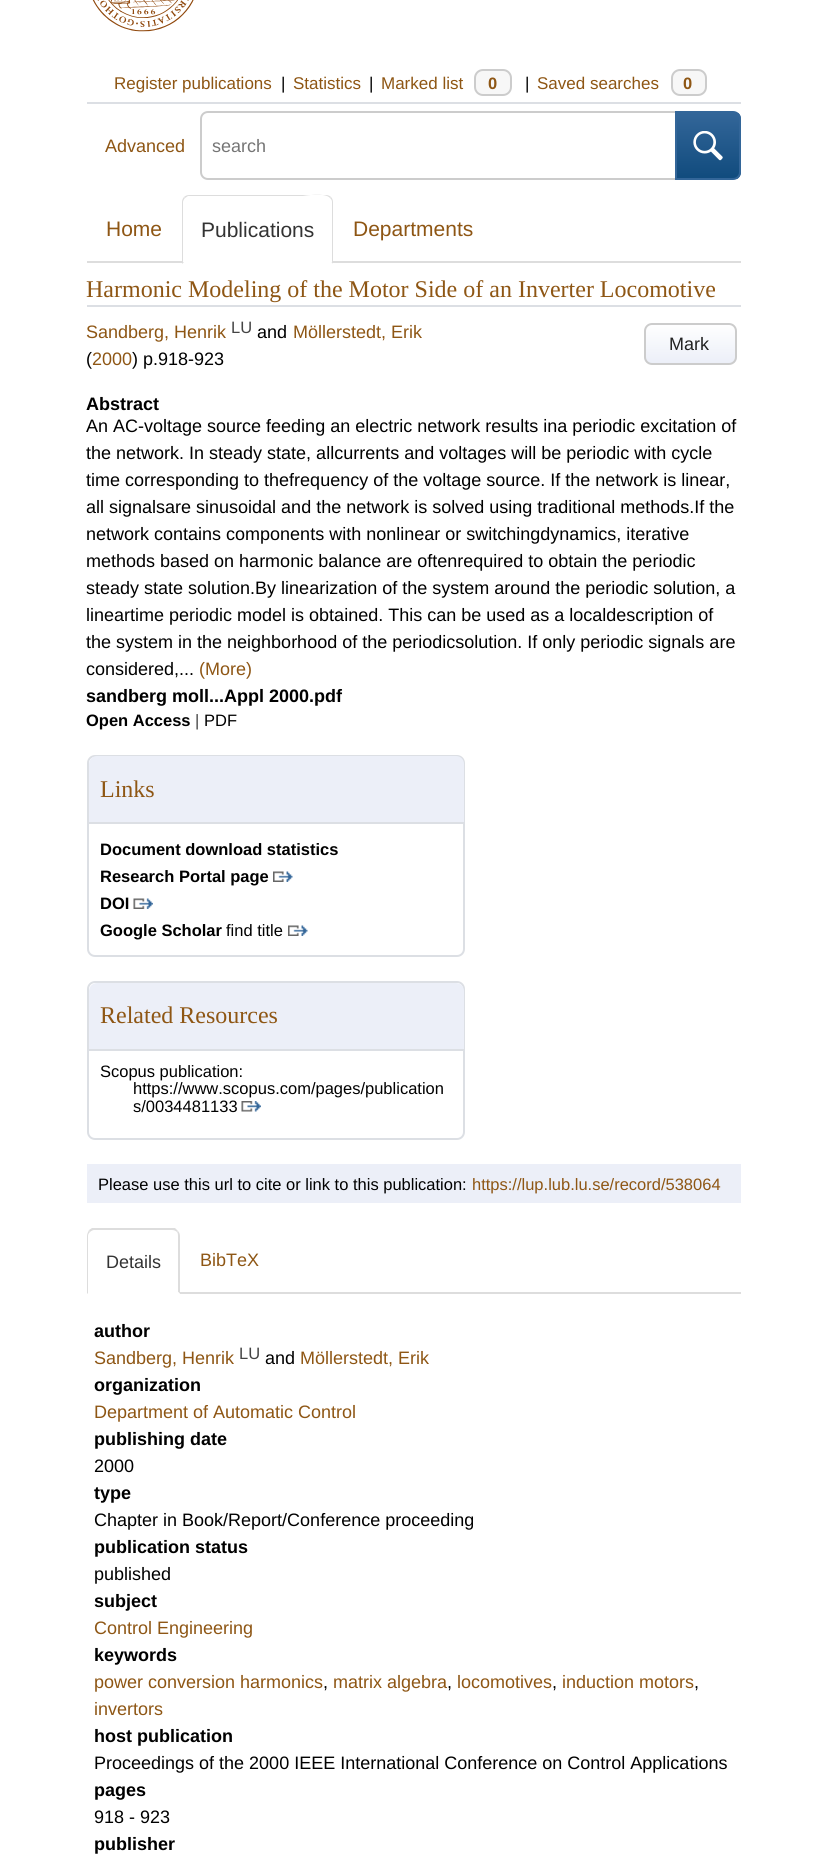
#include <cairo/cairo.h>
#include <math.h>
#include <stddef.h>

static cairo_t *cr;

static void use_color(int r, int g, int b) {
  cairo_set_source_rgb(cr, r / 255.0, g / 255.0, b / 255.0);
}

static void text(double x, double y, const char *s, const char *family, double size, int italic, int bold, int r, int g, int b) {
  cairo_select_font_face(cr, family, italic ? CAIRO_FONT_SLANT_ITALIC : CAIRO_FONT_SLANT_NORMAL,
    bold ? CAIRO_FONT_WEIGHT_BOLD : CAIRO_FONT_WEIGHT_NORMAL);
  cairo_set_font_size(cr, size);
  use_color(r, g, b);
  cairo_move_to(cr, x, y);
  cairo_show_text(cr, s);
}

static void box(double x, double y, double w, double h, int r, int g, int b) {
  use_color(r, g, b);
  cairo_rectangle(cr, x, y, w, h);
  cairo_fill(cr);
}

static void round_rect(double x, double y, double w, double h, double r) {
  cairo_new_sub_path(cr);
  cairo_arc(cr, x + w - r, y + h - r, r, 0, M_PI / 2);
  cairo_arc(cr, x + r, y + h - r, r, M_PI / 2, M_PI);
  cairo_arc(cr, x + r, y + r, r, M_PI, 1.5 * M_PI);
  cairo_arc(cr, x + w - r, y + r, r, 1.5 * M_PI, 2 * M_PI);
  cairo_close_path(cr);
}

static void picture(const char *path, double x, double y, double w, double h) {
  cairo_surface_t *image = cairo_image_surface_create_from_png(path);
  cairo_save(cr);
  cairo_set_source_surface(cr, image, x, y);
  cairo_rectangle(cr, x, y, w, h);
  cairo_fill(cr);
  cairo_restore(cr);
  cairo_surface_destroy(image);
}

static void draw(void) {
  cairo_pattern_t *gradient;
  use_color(255, 255, 255);
  cairo_paint(cr);
  picture("img_01.png", 92, 0, 102, 32);
  box(87, 102, 654, 2, 220, 223, 228);
  use_color(247, 247, 247);
  round_rect(475, 70, 36, 25, 8);
  cairo_fill_preserve(cr);
  use_color(204, 204, 204);
  cairo_stroke(cr);
  use_color(247, 247, 247);
  round_rect(672, 70, 34, 25, 8);
  cairo_fill_preserve(cr);
  use_color(204, 204, 204);
  cairo_stroke(cr);
  cairo_new_path(cr);
  cairo_move_to(cr, 208, 112);
  cairo_line_to(cr, 676, 112);
  cairo_line_to(cr, 676, 179);
  cairo_line_to(cr, 208, 179);
  cairo_curve_to(cr, 204, 179, 201, 176, 201, 172);
  cairo_line_to(cr, 201, 119);
  cairo_curve_to(cr, 201, 115, 204, 112, 208, 112);
  cairo_close_path(cr);
  cairo_stroke(cr);
  cairo_save(cr);
  cairo_new_path(cr);
  cairo_move_to(cr, 675, 111);
  cairo_line_to(cr, 733, 111);
  cairo_curve_to(cr, 737.5, 111, 741, 114.5, 741, 119);
  cairo_line_to(cr, 741, 172);
  cairo_curve_to(cr, 741, 176.5, 737.5, 180, 733, 180);
  cairo_line_to(cr, 675, 180);
  cairo_close_path(cr);
  cairo_clip(cr);
  gradient = cairo_pattern_create_linear(708, 113, 708, 179);
  cairo_pattern_add_color_stop_rgba(gradient, 0, 0.2, 0.4, 0.6, 1);
  cairo_pattern_add_color_stop_rgba(gradient, 1, 0.063, 0.294, 0.49, 1);
  cairo_set_source(cr, gradient);
  cairo_pattern_destroy(gradient);
  cairo_rectangle(cr, 677, 113, 64, 66);
  cairo_fill(cr);
  cairo_restore(cr);
  cairo_new_path(cr);
  cairo_move_to(cr, 676, 112);
  cairo_line_to(cr, 733, 112);
  cairo_curve_to(cr, 737, 112, 740, 115, 740, 119);
  cairo_line_to(cr, 740, 172);
  cairo_curve_to(cr, 740, 176, 737, 179, 733, 179);
  cairo_line_to(cr, 676, 179);
  cairo_close_path(cr);
  use_color(51, 102, 153);
  cairo_stroke(cr);
  picture("img_02.png", 693, 131, 30, 30);
  box(87, 261, 654, 2, 221, 221, 221);
  use_color(255, 255, 255);
  cairo_new_path(cr);
  cairo_move_to(cr, 190, 195);
  cairo_line_to(cr, 325, 195);
  cairo_curve_to(cr, 329.5, 195, 333, 198.5, 333, 203);
  cairo_line_to(cr, 333, 264);
  cairo_line_to(cr, 182, 264);
  cairo_line_to(cr, 182, 203);
  cairo_curve_to(cr, 182, 198.5, 185.5, 195, 190, 195);
  cairo_close_path(cr);
  cairo_fill(cr);
  use_color(221, 221, 221);
  cairo_new_path(cr);
  cairo_move_to(cr, 189, 195);
  cairo_curve_to(cr, 187, 195, 185, 196, 184, 197);
  cairo_line_to(cr, 185, 198);
  cairo_line_to(cr, 188, 196);
  cairo_line_to(cr, 303, 196);
  cairo_curve_to(cr, 303, 196, 325, 192, 330, 198);
  cairo_line_to(cr, 331, 197);
  cairo_curve_to(cr, 330, 196, 328, 195, 326, 195);
  cairo_close_path(cr);
  cairo_fill(cr);
  cairo_new_path(cr);
  cairo_move_to(cr, 333, 264);
  cairo_line_to(cr, 333, 202);
  cairo_curve_to(cr, 333, 200, 332, 198, 331, 197);
  cairo_line_to(cr, 330, 198);
  cairo_curve_to(cr, 331, 199, 332, 200, 332, 202);
  cairo_line_to(cr, 332, 262);
  cairo_line_to(cr, 331, 262);
  cairo_close_path(cr);
  cairo_fill(cr);
  use_color(255, 255, 255);
  cairo_new_path(cr);
  cairo_move_to(cr, 333, 264);
  cairo_line_to(cr, 331, 262);
  cairo_line_to(cr, 184, 262);
  cairo_line_to(cr, 182, 264);
  cairo_close_path(cr);
  cairo_fill(cr);
  use_color(221, 221, 221);
  cairo_new_path(cr);
  cairo_move_to(cr, 184, 197);
  cairo_curve_to(cr, 183, 198, 182, 200, 182, 202);
  cairo_line_to(cr, 182, 264);
  cairo_line_to(cr, 184, 262);
  cairo_line_to(cr, 183, 262);
  cairo_line_to(cr, 183, 202);
  cairo_curve_to(cr, 183, 201, 184, 199, 185, 198);
  cairo_close_path(cr);
  cairo_fill(cr);
  box(87, 305, 654, 2, 220, 223, 228);
  cairo_save(cr);
  round_rect(644, 323, 93, 42, 8);
  cairo_clip(cr);
  gradient = cairo_pattern_create_linear(690, 324, 690, 363);
  cairo_pattern_add_color_stop_rgba(gradient, 0, 1, 1, 1, 1);
  cairo_pattern_add_color_stop_rgba(gradient, 1, 0.925, 0.937, 0.973, 1);
  cairo_set_source(cr, gradient);
  cairo_pattern_destroy(gradient);
  cairo_rectangle(cr, 644, 324, 93, 39);
  cairo_fill(cr);
  cairo_restore(cr);
  round_rect(645, 324, 91, 40, 7);
  use_color(204, 204, 204);
  cairo_stroke(cr);
  round_rect(88, 756, 376, 200, 7);
  use_color(220, 223, 228);
  cairo_stroke(cr);
  use_color(236, 239, 248);
  cairo_new_path(cr);
  cairo_move_to(cr, 97, 756);
  cairo_line_to(cr, 456, 756);
  cairo_curve_to(cr, 460.5, 756, 464, 759.5, 464, 764);
  cairo_line_to(cr, 464, 824);
  cairo_line_to(cr, 89, 824);
  cairo_line_to(cr, 89, 764);
  cairo_curve_to(cr, 89, 759.5, 92.5, 756, 97, 756);
  cairo_close_path(cr);
  cairo_fill(cr);
  box(89, 822, 375, 2, 220, 223, 228);
  picture("img_03.png", 273, 871, 20, 11);
  picture("img_04.png", 133, 898, 20, 11);
  picture("img_05.png", 288, 925, 20, 11);
  round_rect(88, 982, 376, 157, 7);
  cairo_stroke(cr);
  use_color(236, 239, 248);
  cairo_new_path(cr);
  cairo_move_to(cr, 97, 983);
  cairo_line_to(cr, 456, 983);
  cairo_curve_to(cr, 460.5, 983, 464, 986.5, 464, 991);
  cairo_line_to(cr, 464, 1050);
  cairo_line_to(cr, 89, 1050);
  cairo_line_to(cr, 89, 991);
  cairo_curve_to(cr, 89, 986.5, 92.5, 983, 97, 983);
  cairo_close_path(cr);
  cairo_fill(cr);
  box(89, 1049, 375, 2, 220, 223, 228);
  picture("img_06.png", 241, 1101, 20, 11);
  box(87, 1164, 654, 39, 236, 239, 248);
  box(180, 1292, 561, 2, 221, 221, 221);
  cairo_new_path(cr);
  cairo_move_to(cr, 94, 1230);
  cairo_curve_to(cr, 93, 1230, 91, 1231, 90, 1232);
  cairo_line_to(cr, 89, 1230);
  cairo_line_to(cr, 92, 1228);
  cairo_line_to(cr, 175, 1228);
  cairo_line_to(cr, 178, 1231);
  cairo_line_to(cr, 177, 1232);
  cairo_curve_to(cr, 176, 1231, 174, 1230, 172, 1230);
  cairo_close_path(cr);
  cairo_fill(cr);
  cairo_new_path(cr);
  cairo_move_to(cr, 180, 1294);
  cairo_line_to(cr, 180, 1236);
  cairo_curve_to(cr, 180, 1234, 179, 1232, 178, 1231);
  cairo_line_to(cr, 177, 1232);
  cairo_curve_to(cr, 178, 1233, 178, 1235, 178, 1236);
  cairo_line_to(cr, 178, 1292);
  cairo_close_path(cr);
  cairo_fill(cr);
  use_color(255, 255, 255);
  cairo_new_path(cr);
  cairo_move_to(cr, 180, 1294);
  cairo_line_to(cr, 88, 1294);
  cairo_line_to(cr, 88, 1293);
  cairo_line_to(cr, 178, 1293);
  cairo_line_to(cr, 178, 1292);
  cairo_close_path(cr);
  cairo_fill(cr);
  use_color(221, 221, 221);
  cairo_new_path(cr);
  cairo_move_to(cr, 87, 1236);
  cairo_line_to(cr, 87, 1294);
  cairo_line_to(cr, 88, 1293);
  cairo_line_to(cr, 88, 1236);
  cairo_curve_to(cr, 88, 1234, 89, 1233, 90, 1232);
  cairo_line_to(cr, 89, 1230);
  cairo_curve_to(cr, 88, 1232, 87, 1234, 87, 1236);
  cairo_close_path(cr);
  cairo_fill(cr);
  text(114, 89, "Register publications", "Liberation Sans", 17, 0, 0, 142, 86, 20);
  text(281, 89, "|", "Liberation Sans", 17, 0, 0, 0, 0, 0);
  text(293, 89, "Statistics", "Liberation Sans", 17, 0, 0, 142, 86, 20);
  text(369, 89, "|", "Liberation Sans", 17, 0, 0, 0, 0, 0);
  text(381, 89, "Marked list", "Liberation Sans", 17, 0, 0, 142, 86, 20);
  text(488, 89, "0", "Liberation Sans", 16.5, 0, 1, 142, 86, 20);
  text(525, 89, "|", "Liberation Sans", 17, 0, 0, 0, 0, 0);
  text(537, 89, "Saved searches", "Liberation Sans", 17, 0, 0, 142, 86, 20);
  text(683, 89, "0", "Liberation Sans", 16.5, 0, 1, 142, 86, 20);
  text(105, 152, "Advanced", "Liberation Sans", 18, 0, 0, 142, 86, 20);
  text(212, 152, "search", "Liberation Sans", 18, 0, 0, 117, 117, 117);
  text(106, 236, "Home", "Liberation Sans", 21, 0, 0, 142, 86, 20);
  text(201, 237, "Publications", "Liberation Sans", 21, 0, 0, 51, 51, 51);
  text(353, 236, "Departments", "Liberation Sans", 21, 0, 0, 142, 86, 20);
  text(86, 297, "Harmonic Modeling of the Motor Side of an Inverter Locomotive", "Liberation Serif", 24, 0, 0, 142, 86, 20);
  text(86, 338, "Sandberg, Henrik", "Liberation Sans", 18, 0, 0, 142, 86, 20);
  text(231, 333, "LU", "Liberation Sans", 16.5, 0, 0, 68, 68, 68);
  text(257, 338, "and", "Liberation Sans", 18, 0, 0, 0, 0, 0);
  text(293, 338, "Möllerstedt, Erik", "Liberation Sans", 18, 0, 0, 142, 86, 20);
  text(669, 350, "Mark", "Liberation Sans", 18, 0, 0, 34, 34, 34);
  text(86, 365, "(", "Liberation Sans", 18, 0, 0, 0, 0, 0);
  text(92, 365, "2000", "Liberation Sans", 18, 0, 0, 142, 86, 20);
  text(132, 365, ") p.918-923", "Liberation Sans", 18, 0, 0, 0, 0, 0);
  text(86, 410, "Abstract", "Liberation Sans", 18, 0, 1, 0, 0, 0);
  text(86, 432, "An AC-voltage source feeding an electric network results ina periodic excitation of", "Liberation Sans", 18, 0, 0, 0, 0, 0);
  text(86, 459, "the network. In steady state, allcurrents and voltages will be periodic with cycle", "Liberation Sans", 18, 0, 0, 0, 0, 0);
  text(86, 486, "time corresponding to thefrequency of the voltage source. If the network is linear,", "Liberation Sans", 18, 0, 0, 0, 0, 0);
  text(86, 513, "all signalsare sinusoidal and the network is solved using traditional methods.If the", "Liberation Sans", 18, 0, 0, 0, 0, 0);
  text(86, 540, "network contains components with nonlinear or switchingdynamics, iterative", "Liberation Sans", 18, 0, 0, 0, 0, 0);
  text(86, 567, "methods based on harmonic balance are oftenrequired to obtain the periodic", "Liberation Sans", 18, 0, 0, 0, 0, 0);
  text(86, 594, "steady state solution.By linearization of the system around the periodic solution, a", "Liberation Sans", 18, 0, 0, 0, 0, 0);
  text(86, 621, "lineartime periodic model is obtained. This can be used as a localdescription of", "Liberation Sans", 18, 0, 0, 0, 0, 0);
  text(86, 648, "the system in the neighborhood of the periodicsolution. If only periodic signals are", "Liberation Sans", 18, 0, 0, 0, 0, 0);
  text(86, 675, "considered,...", "Liberation Sans", 18, 0, 0, 0, 0, 0);
  text(199, 675, "(More)", "Liberation Sans", 18, 0, 0, 142, 86, 20);
  text(86, 702, "sandberg moll...Appl 2000.pdf", "Liberation Sans", 18, 0, 1, 0, 0, 0);
  text(86, 726, "Open Access", "Liberation Sans", 16.5, 0, 1, 0, 0, 0);
  text(195, 726, "|", "Liberation Sans", 16.5, 0, 0, 68, 68, 68);
  text(204, 726, "PDF", "Liberation Sans", 16.5, 0, 0, 0, 0, 0);
  text(100, 797, "Links", "Liberation Serif", 24, 0, 0, 142, 86, 20);
  text(100, 855, "Document download statistics", "Liberation Sans", 16.5, 0, 1, 0, 0, 0);
  text(100, 882, "Research Portal page", "Liberation Sans", 16.5, 0, 1, 0, 0, 0);
  text(100, 909, "DOI", "Liberation Sans", 16.5, 0, 1, 0, 0, 0);
  text(100, 936, "Google Scholar", "Liberation Sans", 16.5, 0, 1, 0, 0, 0);
  text(226, 936, "find title", "Liberation Sans", 16.5, 0, 0, 0, 0, 0);
  text(100, 1023, "Related Resources", "Liberation Serif", 24, 0, 0, 142, 86, 20);
  text(100, 1077, "Scopus publication:", "Liberation Sans", 16.5, 0, 0, 0, 0, 0);
  text(133, 1094, "https://www.scopus.com/pages/publication", "Liberation Sans", 16.5, 0, 0, 0, 0, 0);
  text(133, 1112, "s/0034481133", "Liberation Sans", 16.5, 0, 0, 0, 0, 0);
  text(98, 1190, "Please use this url to cite or link to this publication:", "Liberation Sans", 16.5, 0, 0, 0, 0, 0);
  text(472, 1190, "https://lup.lub.lu.se/record/538064", "Liberation Sans", 16.5, 0, 0, 142, 86, 20);
  text(106, 1268, "Details", "Liberation Sans", 18, 0, 0, 51, 51, 51);
  text(200, 1266, "BibTeX", "Liberation Sans", 18, 0, 0, 142, 86, 20);
  text(94, 1337, "author", "Liberation Sans", 18, 0, 1, 0, 0, 0);
  text(94, 1364, "Sandberg, Henrik", "Liberation Sans", 18, 0, 0, 142, 86, 20);
  text(239, 1359, "LU", "Liberation Sans", 16.5, 0, 0, 68, 68, 68);
  text(265, 1364, "and", "Liberation Sans", 18, 0, 0, 0, 0, 0);
  text(300, 1364, "Möllerstedt, Erik", "Liberation Sans", 18, 0, 0, 142, 86, 20);
  text(94, 1391, "organization", "Liberation Sans", 18, 0, 1, 0, 0, 0);
  text(94, 1418, "Department of Automatic Control", "Liberation Sans", 18, 0, 0, 142, 86, 20);
  text(94, 1445, "publishing date", "Liberation Sans", 18, 0, 1, 0, 0, 0);
  text(94, 1472, "2000", "Liberation Sans", 18, 0, 0, 0, 0, 0);
  text(94, 1499, "type", "Liberation Sans", 18, 0, 1, 0, 0, 0);
  text(94, 1526, "Chapter in Book/Report/Conference proceeding", "Liberation Sans", 18, 0, 0, 0, 0, 0);
  text(94, 1553, "publication status", "Liberation Sans", 18, 0, 1, 0, 0, 0);
  text(94, 1580, "published", "Liberation Sans", 18, 0, 0, 0, 0, 0);
  text(94, 1607, "subject", "Liberation Sans", 18, 0, 1, 0, 0, 0);
  text(94, 1634, "Control Engineering", "Liberation Sans", 18, 0, 0, 142, 86, 20);
  text(94, 1661, "keywords", "Liberation Sans", 18, 0, 1, 0, 0, 0);
  text(94, 1688, "power conversion harmonics", "Liberation Sans", 18, 0, 0, 142, 86, 20);
  text(323, 1688, ",", "Liberation Sans", 18, 0, 0, 0, 0, 0);
  text(333, 1688, "matrix algebra", "Liberation Sans", 18, 0, 0, 142, 86, 20);
  text(447, 1688, ",", "Liberation Sans", 18, 0, 0, 0, 0, 0);
  text(457, 1688, "locomotives", "Liberation Sans", 18, 0, 0, 142, 86, 20);
  text(552, 1688, ",", "Liberation Sans", 18, 0, 0, 0, 0, 0);
  text(562, 1688, "induction motors", "Liberation Sans", 18, 0, 0, 142, 86, 20);
  text(694, 1688, ",", "Liberation Sans", 18, 0, 0, 0, 0, 0);
  text(94, 1715, "invertors", "Liberation Sans", 18, 0, 0, 142, 86, 20);
  text(94, 1742, "host publication", "Liberation Sans", 18, 0, 1, 0, 0, 0);
  text(94, 1769, "Proceedings of the 2000 IEEE International Conference on Control Applications", "Liberation Sans", 18, 0, 0, 0, 0, 0);
  text(94, 1796, "pages", "Liberation Sans", 18, 0, 1, 0, 0, 0);
  text(94, 1823, "918 - 923", "Liberation Sans", 18, 0, 0, 0, 0, 0);
  text(94, 1850, "publisher", "Liberation Sans", 18, 0, 1, 0, 0, 0);
}

int main(void) {
  cairo_surface_t *surface = cairo_image_surface_create(CAIRO_FORMAT_RGB24, 826, 1865);
  cr = cairo_create(surface);
  cairo_font_options_t *options = cairo_font_options_create();
  cairo_font_options_set_hint_metrics(options, CAIRO_HINT_METRICS_OFF);
  cairo_font_options_set_hint_style(options, CAIRO_HINT_STYLE_NONE);
  cairo_set_font_options(cr, options);
  cairo_set_miter_limit(cr, 4);
  draw();
  cairo_surface_write_to_png(surface, "out.png");
  cairo_font_options_destroy(options);
  cairo_destroy(cr);
  cairo_surface_destroy(surface);
  return 0;
}
